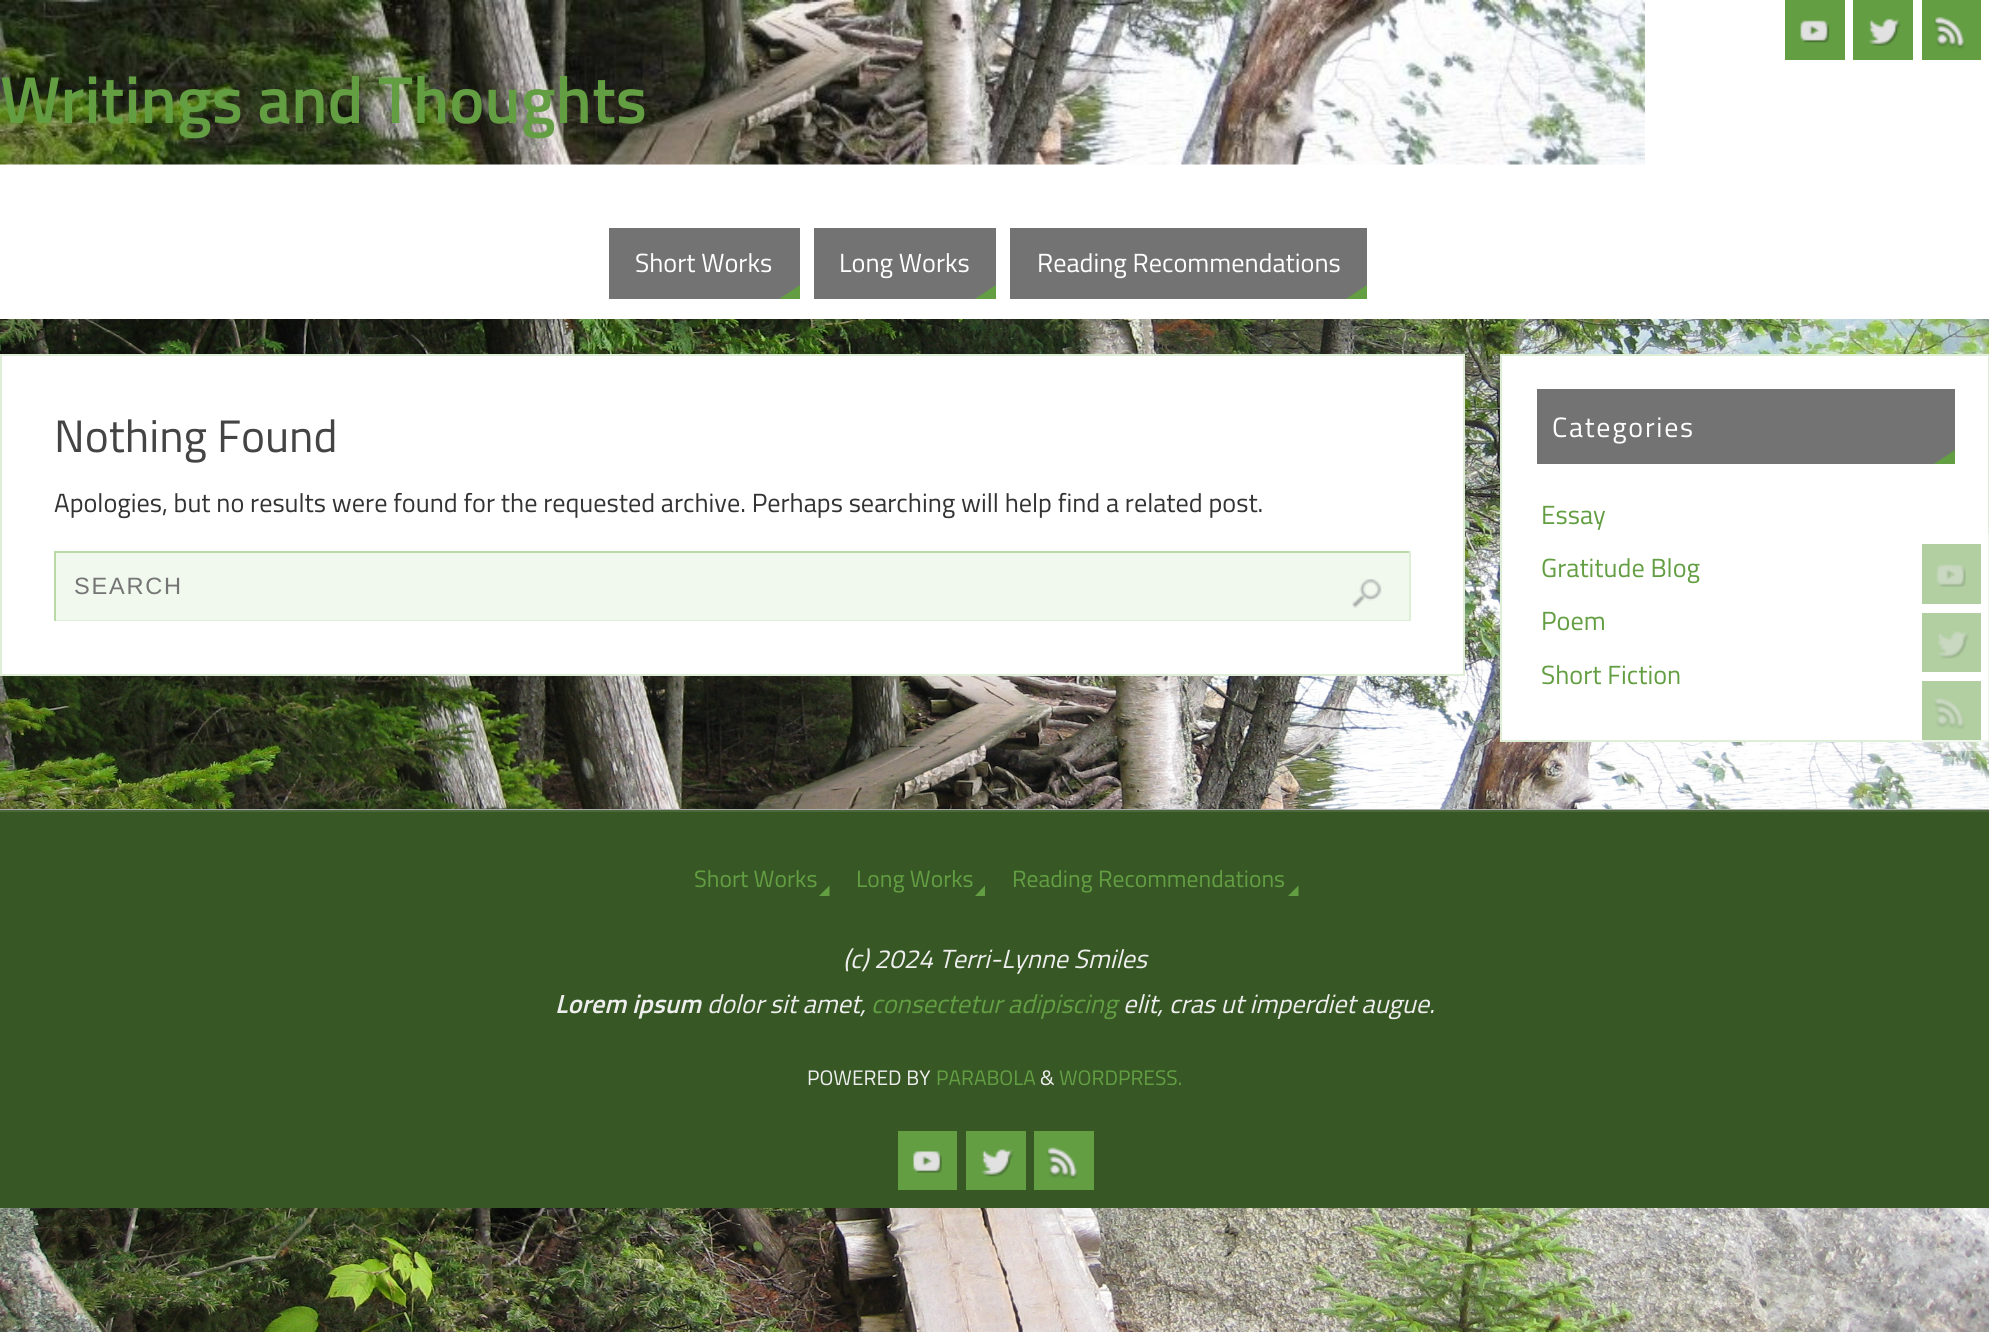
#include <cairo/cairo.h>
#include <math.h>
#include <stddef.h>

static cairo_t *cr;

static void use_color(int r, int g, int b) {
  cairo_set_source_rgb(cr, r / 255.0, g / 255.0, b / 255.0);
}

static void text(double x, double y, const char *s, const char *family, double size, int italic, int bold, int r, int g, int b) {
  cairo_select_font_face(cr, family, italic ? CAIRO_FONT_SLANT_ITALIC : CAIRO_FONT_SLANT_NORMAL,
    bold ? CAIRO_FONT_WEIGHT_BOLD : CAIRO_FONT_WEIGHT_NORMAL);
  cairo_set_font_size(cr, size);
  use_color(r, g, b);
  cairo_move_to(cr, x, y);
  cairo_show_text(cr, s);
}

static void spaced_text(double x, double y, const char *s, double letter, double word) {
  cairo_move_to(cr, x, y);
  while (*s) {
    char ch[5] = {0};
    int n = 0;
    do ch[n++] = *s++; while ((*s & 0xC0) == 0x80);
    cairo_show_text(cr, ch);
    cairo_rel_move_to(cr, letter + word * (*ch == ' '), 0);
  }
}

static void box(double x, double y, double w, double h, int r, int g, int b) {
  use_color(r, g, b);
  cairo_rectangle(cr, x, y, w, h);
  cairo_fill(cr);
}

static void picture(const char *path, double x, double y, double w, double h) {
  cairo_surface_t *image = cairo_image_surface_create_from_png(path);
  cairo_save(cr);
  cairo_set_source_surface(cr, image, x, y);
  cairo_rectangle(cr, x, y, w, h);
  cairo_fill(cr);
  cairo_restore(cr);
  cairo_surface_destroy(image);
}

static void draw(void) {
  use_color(255, 255, 255);
  cairo_paint(cr);
  picture("img_01.png", 0, 319, 1989, 1013);
  picture("img_02.png", 0, 0, 1645, 165);
  box(1785, 0, 60, 60, 99, 158, 67);
  picture("img_03.png", 1800, 20, 30, 23);
  box(1853, 0, 60, 60, 99, 158, 67);
  picture("img_04.png", 1868, 18, 33, 28);
  box(1922, 0, 59, 60, 99, 158, 67);
  picture("img_05.png", 1934, 17, 31, 32);
  box(609, 228, 191, 71, 115, 115, 115);
  use_color(99, 158, 67);
  cairo_new_path(cr);
  cairo_move_to(cr, 800, 299);
  cairo_line_to(cr, 779, 299);
  cairo_line_to(cr, 800, 285);
  cairo_close_path(cr);
  cairo_fill(cr);
  box(814, 228, 182, 71, 115, 115, 115);
  use_color(99, 158, 67);
  cairo_new_path(cr);
  cairo_move_to(cr, 996, 299);
  cairo_line_to(cr, 975, 299);
  cairo_line_to(cr, 996, 285);
  cairo_close_path(cr);
  cairo_fill(cr);
  box(1010, 228, 357, 71, 115, 115, 115);
  use_color(99, 158, 67);
  cairo_new_path(cr);
  cairo_move_to(cr, 1367, 299);
  cairo_line_to(cr, 1346, 299);
  cairo_line_to(cr, 1367, 285);
  cairo_close_path(cr);
  cairo_fill(cr);
  use_color(255, 255, 255);
  cairo_rectangle(cr, 1, 355, 1463, 320);
  cairo_fill_preserve(cr);
  use_color(223, 238, 215);
  cairo_stroke(cr);
  box(56, 553, 1353, 67, 241, 248, 237);
  box(54, 551, 1357, 2, 185, 218, 167);
  box(1409, 551, 2, 70, 223, 238, 215);
  box(54, 620, 1357, 1, 223, 238, 215);
  box(54, 551, 2, 70, 185, 218, 167);
  picture("img_06.png", 1352, 579, 30, 29);
  use_color(255, 255, 255);
  cairo_rectangle(cr, 1501, 355, 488, 386);
  cairo_fill_preserve(cr);
  use_color(223, 238, 215);
  cairo_stroke(cr);
  box(1537, 389, 418, 75, 115, 115, 115);
  use_color(99, 158, 67);
  cairo_new_path(cr);
  cairo_move_to(cr, 1955, 464);
  cairo_line_to(cr, 1934, 464);
  cairo_line_to(cr, 1955, 450);
  cairo_close_path(cr);
  cairo_fill(cr);
  cairo_set_source_rgba(cr, 1, 1, 1, 0.5);
  cairo_rectangle(cr, 1911, 534, 78, 217);
  cairo_fill(cr);
  box(1922, 544, 59, 60, 177, 207, 161);
  picture("img_07.png", 1936, 564, 30, 23);
  box(1922, 613, 59, 59, 177, 207, 161);
  picture("img_08.png", 1938, 631, 31, 28);
  box(1922, 681, 59, 59, 177, 207, 161);
  picture("img_09.png", 1934, 698, 31, 31);
  box(0, 809, 1989, 1, 170, 170, 170);
  box(0, 812, 1989, 396, 55, 88, 37);
  box(0, 810, 1989, 2, 75, 105, 59);
  use_color(99, 158, 67);
  cairo_new_path(cr);
  cairo_move_to(cr, 829.5, 896);
  cairo_line_to(cr, 819, 896);
  cairo_line_to(cr, 829.5, 885.5);
  cairo_close_path(cr);
  cairo_fill(cr);
  cairo_new_path(cr);
  cairo_move_to(cr, 985, 896);
  cairo_line_to(cr, 975, 896);
  cairo_line_to(cr, 985, 885.5);
  cairo_close_path(cr);
  cairo_fill(cr);
  cairo_new_path(cr);
  cairo_move_to(cr, 1298.5, 896);
  cairo_line_to(cr, 1288, 896);
  cairo_line_to(cr, 1298.5, 885.5);
  cairo_close_path(cr);
  cairo_fill(cr);
  box(898, 1131, 59, 59, 99, 158, 67);
  picture("img_10.png", 913, 1151, 29, 22);
  box(966, 1131, 60, 59, 99, 158, 67);
  picture("img_11.png", 981, 1149, 33, 28);
  box(1034, 1131, 60, 59, 99, 158, 67);
  picture("img_12.png", 1046, 1147, 32, 32);
  text(0, 123, "Writings and Thoughts", "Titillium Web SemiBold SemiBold", 66.5, 0, 0, 99, 158, 67);
  text(635, 272, "Short Works", "Titillium Web", 26.25, 0, 0, 255, 255, 255);
  text(839, 272, "Long Works", "Titillium Web", 26.25, 0, 0, 255, 255, 255);
  text(1037, 272, "Reading Recommendations", "Titillium Web", 26.25, 0, 0, 255, 255, 255);
  text(54, 452, "Nothing Found", "Titillium Web", 45.5, 0, 0, 68, 68, 68);
  text(54, 512, "Apologies, but no results were found for the requested archive. Perhaps searching will help find a related post.", "Titillium Web", 26.25, 0, 0, 51, 51, 51);
  cairo_select_font_face(cr, "Liberation Sans", CAIRO_FONT_SLANT_NORMAL, CAIRO_FONT_WEIGHT_NORMAL);
  cairo_set_font_size(cr, 23.6);
  use_color(117, 117, 117);
  spaced_text(74, 594, "SEARCH", 1.75, 0);
  cairo_select_font_face(cr, "Titillium Web", CAIRO_FONT_SLANT_NORMAL, CAIRO_FONT_WEIGHT_NORMAL);
  cairo_set_font_size(cr, 28);
  use_color(255, 255, 255);
  spaced_text(1552, 437, "Categories", 1.75, 0);
  text(1541, 524, "Essay", "Titillium Web", 26.25, 0, 0, 99, 158, 67);
  text(1541, 577, "Gratitude Blog", "Titillium Web", 26.25, 0, 0, 99, 158, 67);
  text(1541, 630, "Poem", "Titillium Web", 26.25, 0, 0, 99, 158, 67);
  text(1541, 684, "Short Fiction", "Titillium Web", 26.25, 0, 0, 99, 158, 67);
  text(694, 887, "Short Works", "Titillium Web", 23.6, 0, 0, 99, 158, 67);
  text(856, 887, "Long Works", "Titillium Web", 23.6, 0, 0, 99, 158, 67);
  text(1012, 887, "Reading Recommendations", "Titillium Web", 23.6, 0, 0, 99, 158, 67);
  text(843, 968, "(c) 2024 Terri-Lynne Smiles", "Titillium Web", 26.25, 1, 0, 238, 238, 238);
  text(555, 1013, "Lorem ipsum", "Titillium Web SemiBold SemiBold", 26.25, 1, 0, 238, 238, 238);
  text(707, 1013, "dolor sit amet,", "Titillium Web", 26.25, 1, 0, 238, 238, 238);
  text(871, 1013, "consectetur adipiscing", "Titillium Web", 26.25, 1, 0, 99, 158, 67);
  text(1123, 1013, "elit, cras ut imperdiet augue.", "Titillium Web", 26.25, 1, 0, 238, 238, 238);
  text(807, 1085, "POWERED BY", "Titillium Web", 21, 0, 0, 238, 238, 238);
  text(936, 1085, "PARABOLA", "Titillium Web", 21, 0, 0, 99, 158, 67);
  text(1040, 1085, "&", "Titillium Web", 21, 0, 0, 238, 238, 238);
  text(1059, 1085, "WORDPRESS.", "Titillium Web", 21, 0, 0, 99, 158, 67);
}

int main(void) {
  cairo_surface_t *surface = cairo_image_surface_create(CAIRO_FORMAT_RGB24, 1989, 1332);
  cr = cairo_create(surface);
  cairo_font_options_t *options = cairo_font_options_create();
  cairo_font_options_set_hint_metrics(options, CAIRO_HINT_METRICS_OFF);
  cairo_font_options_set_hint_style(options, CAIRO_HINT_STYLE_NONE);
  cairo_set_font_options(cr, options);
  cairo_set_miter_limit(cr, 4);
  draw();
  cairo_surface_write_to_png(surface, "out.png");
  cairo_font_options_destroy(options);
  cairo_destroy(cr);
  cairo_surface_destroy(surface);
  return 0;
}
